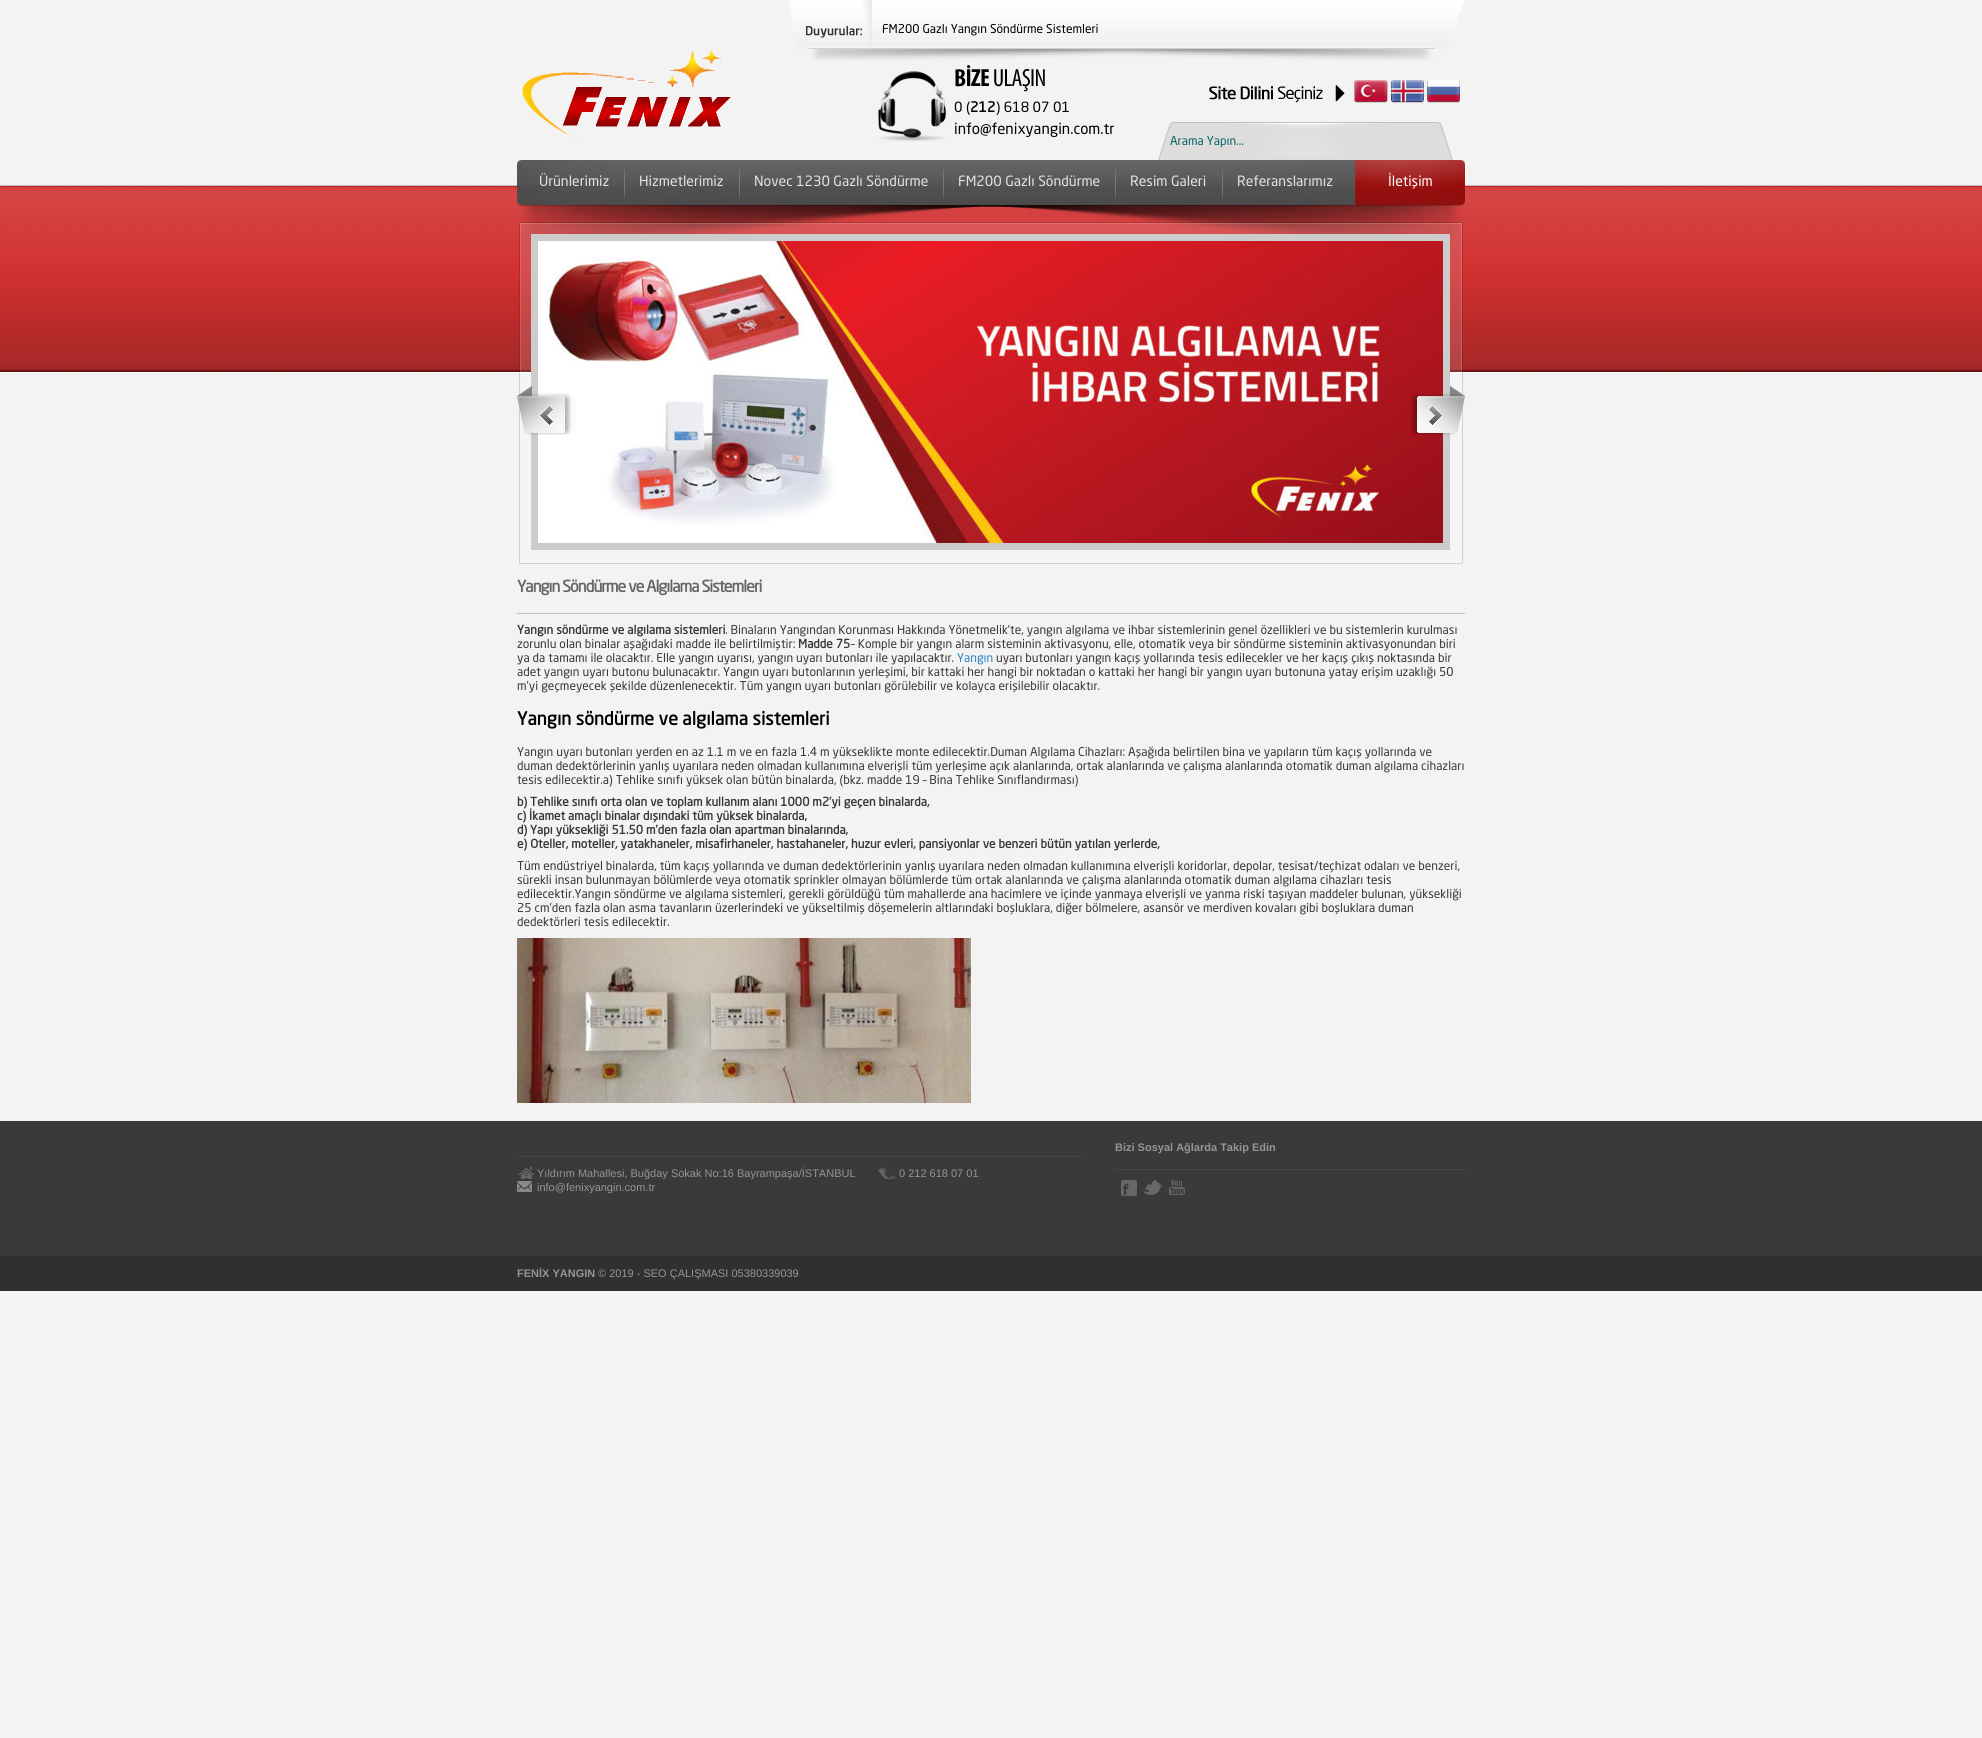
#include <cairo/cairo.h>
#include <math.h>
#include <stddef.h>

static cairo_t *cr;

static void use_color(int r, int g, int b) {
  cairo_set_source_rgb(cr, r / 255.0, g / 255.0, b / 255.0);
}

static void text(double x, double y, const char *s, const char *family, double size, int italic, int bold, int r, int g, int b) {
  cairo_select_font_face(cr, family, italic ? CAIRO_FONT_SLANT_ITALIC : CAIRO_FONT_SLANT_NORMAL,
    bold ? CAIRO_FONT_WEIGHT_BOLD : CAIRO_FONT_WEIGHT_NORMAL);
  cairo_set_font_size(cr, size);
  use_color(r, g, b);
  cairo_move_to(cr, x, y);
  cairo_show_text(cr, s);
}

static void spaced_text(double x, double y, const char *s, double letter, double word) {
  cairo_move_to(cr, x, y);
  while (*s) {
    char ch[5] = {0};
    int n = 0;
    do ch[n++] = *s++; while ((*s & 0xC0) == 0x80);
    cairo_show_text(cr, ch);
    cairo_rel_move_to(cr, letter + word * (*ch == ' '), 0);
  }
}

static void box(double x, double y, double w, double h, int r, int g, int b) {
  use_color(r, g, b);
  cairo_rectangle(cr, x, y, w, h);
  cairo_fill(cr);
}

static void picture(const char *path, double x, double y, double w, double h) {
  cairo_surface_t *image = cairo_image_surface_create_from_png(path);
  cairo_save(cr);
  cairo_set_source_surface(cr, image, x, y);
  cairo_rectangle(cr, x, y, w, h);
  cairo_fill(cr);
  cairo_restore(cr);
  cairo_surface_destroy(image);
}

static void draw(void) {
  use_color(243, 243, 243);
  cairo_paint(cr);
  picture("img_01.png", 0, 185, 1982, 188);
  picture("img_02.png", 789, 0, 676, 61);
  picture("img_03.png", 522, 50, 209, 92);
  picture("img_04.png", 1209, 85, 136, 18);
  picture("img_05.png", 1354, 80, 34, 23);
  picture("img_06.png", 1391, 80, 33, 23);
  picture("img_07.png", 1427, 80, 33, 23);
  picture("img_08.png", 878, 65, 167, 76);
  picture("img_09.png", 1158, 122, 295, 38);
  picture("img_10.png", 517, 160, 948, 94);
  picture("img_11.png", 624, 166, 1, 38);
  picture("img_12.png", 739, 167, 1, 37);
  picture("img_12.png", 943, 167, 1, 37);
  picture("img_12.png", 1115, 167, 1, 37);
  picture("img_13.png", 1222, 167, 1, 37);
  picture("img_14.png", 519, 222, 944, 342);
  picture("img_15.png", 538, 241, 905, 302);
  picture("img_16.png", 517, 386, 58, 49);
  picture("img_17.png", 1410, 386, 55, 49);
  box(517, 613, 948, 1, 189, 189, 189);
  picture("img_18.png", 517, 938, 454, 165);
  box(0, 1121, 1982, 135, 58, 58, 58);
  box(1115, 1169, 350, 1, 70, 70, 70);
  picture("img_19.png", 1120, 1180, 17, 16);
  picture("img_20.png", 1143, 1180, 20, 15);
  picture("img_21.png", 1169, 1180, 16, 15);
  box(517, 1156, 565, 1, 70, 70, 70);
  picture("img_22.png", 518, 1167, 17, 12);
  picture("img_23.png", 879, 1167, 17, 12);
  picture("img_24.png", 517, 1181, 15, 11);
  box(0, 1256, 1982, 35, 48, 48, 48);
  text(882, 33, "FM200 Gazlı Yangın Söndürme Sistemleri", "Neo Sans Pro", 12, 0, 0, 0, 0, 0);
  text(954, 112, "0 (", "Neo Sans Pro", 14, 0, 0, 0, 0, 0);
  text(970, 112, "212", "Neo Sans Pro", 14, 0, 1, 0, 0, 0);
  text(996, 112, ") 618 07 01", "Neo Sans Pro", 14, 0, 0, 0, 0, 0);
  text(954, 134, "info@fenixyangin.com.tr", "Neo Sans Pro", 15, 0, 0, 0, 0, 0);
  text(1170, 145, "Arama Yapın...", "Neo Sans Pro", 12, 0, 0, 0, 102, 102);
  text(539, 186, "Ürünlerimiz", "Neo Sans Pro", 14, 0, 0, 227, 227, 227);
  text(639, 186, "Hizmetlerimiz", "Neo Sans Pro", 14, 0, 0, 227, 227, 227);
  text(754, 186, "Novec 1230 Gazlı Söndürme", "Neo Sans Pro", 14, 0, 0, 227, 227, 227);
  text(958, 186, "FM200 Gazlı Söndürme", "Neo Sans Pro", 14, 0, 0, 227, 227, 227);
  text(1130, 186, "Resim Galeri", "Neo Sans Pro", 14, 0, 0, 227, 227, 227);
  text(1237, 186, "Referanslarımız", "Neo Sans Pro", 14, 0, 0, 227, 227, 227);
  text(1388, 186, "İletişim", "Neo Sans Pro", 14, 0, 0, 255, 255, 255);
  cairo_select_font_face(cr, "Neo Sans Pro", CAIRO_FONT_SLANT_NORMAL, CAIRO_FONT_WEIGHT_BOLD);
  cairo_set_font_size(cr, 16);
  use_color(102, 102, 102);
  spaced_text(517, 592, "Yangın Söndürme ve Algılama Sistemleri", -1, 0);
  text(517, 634, "Yangın söndürme ve algılama sistemleri", "Neo Sans Pro", 12, 0, 1, 59, 54, 54);
  text(725, 634, ". Binaların Yangından Korunması Hakkında Yönetmelik’te, yangın algılama ve ihbar sistemlerinin genel özellikleri ve bu sistemlerin kurulması", "Neo Sans Pro", 12, 0, 0, 59, 54, 54);
  text(517, 648, "zorunlu olan binalar aşağıdaki madde ile belirtilmiştir:", "Neo Sans Pro", 12, 0, 0, 59, 54, 54);
  text(798, 648, "Madde 75", "Neo Sans Pro", 12, 0, 1, 59, 54, 54);
  text(851, 648, "– Komple bir yangın alarm sisteminin aktivasyonu, elle, otomatik veya bir söndürme sisteminin aktivasyonundan biri", "Neo Sans Pro", 12, 0, 0, 59, 54, 54);
  text(517, 662, "ya da tamamı ile olacaktır. Elle yangın uyarısı, yangın uyarı butonları ile yapılacaktır.", "Neo Sans Pro", 12, 0, 0, 59, 54, 54);
  text(957, 662, "Yangın", "Neo Sans Pro", 12, 0, 0, 39, 134, 194);
  text(996, 662, "uyarı butonları yangın kaçış yollarında tesis edilecekler ve her kaçış çıkış noktasında bir", "Neo Sans Pro", 12, 0, 0, 59, 54, 54);
  text(517, 676, "adet yangın uyarı butonu bulunacaktır. Yangın uyarı butonlarının yerleşimi, bir kattaki her hangi bir noktadan o kattaki her hangi bir yangın uyarı butonuna yatay erişim uzaklığı 50", "Neo Sans Pro", 12, 0, 0, 59, 54, 54);
  text(517, 690, "m’yi geçmeyecek şekilde düzenlenecektir. Tüm yangın uyarı butonları görülebilir ve kolayca erişilebilir olacaktır.", "Neo Sans Pro", 12, 0, 0, 59, 54, 54);
  text(517, 725, "Yangın söndürme ve algılama sistemleri", "Neo Sans Pro", 18, 0, 1, 0, 0, 0);
  text(517, 756, "Yangın uyarı butonları yerden en az 1.1 m ve en fazla 1.4 m yükseklikte monte edilecektir.Duman Algılama Cihazları: Aşağıda belirtilen bina ve yapıların tüm kaçış yollarında ve", "Neo Sans Pro", 12, 0, 0, 59, 54, 54);
  text(517, 770, "duman dedektörlerinin yanlış uyarılara neden olmadan kullanımına elverişli tüm yerleşime açık alanlarında, ortak alanlarında ve çalışma alanlarında otomatik duman algılama cihazları", "Neo Sans Pro", 12, 0, 0, 59, 54, 54);
  text(517, 784, "tesis edilecektir.a) Tehlike sınıfı yüksek olan bütün binalarda, (bkz. madde 19 – Bina Tehlike Sınıflandırması)", "Neo Sans Pro", 12, 0, 0, 59, 54, 54);
  text(517, 806, "b) Tehlike sınıfı orta olan ve toplam kullanım alanı 1000 m2’yi geçen binalarda,", "Neo Sans Pro", 12, 0, 1, 59, 54, 54);
  text(517, 820, "c) İkamet amaçlı binalar dışındaki tüm yüksek binalarda,", "Neo Sans Pro", 12, 0, 1, 59, 54, 54);
  text(517, 834, "d) Yapı yüksekliği 51.50 m’den fazla olan apartman binalarında,", "Neo Sans Pro", 12, 0, 1, 59, 54, 54);
  text(517, 848, "e) Oteller, moteller, yatakhaneler, misafirhaneler, hastahaneler, huzur evleri, pansiyonlar ve benzeri bütün yatılan yerlerde,", "Neo Sans Pro", 12, 0, 1, 59, 54, 54);
  text(517, 870, "Tüm endüstriyel binalarda, tüm kaçış yollarında ve duman dedektörlerinin yanlış uyarılara neden olmadan kullanımına elverişli koridorlar, depolar, tesisat/teçhizat odaları ve benzeri,", "Neo Sans Pro", 12, 0, 0, 59, 54, 54);
  text(517, 884, "sürekli insan bulunmayan bölümlerde veya otomatik sprinkler olmayan bölümlerde tüm ortak alanlarında ve çalışma alanlarında otomatik duman algılama cihazları tesis", "Neo Sans Pro", 12, 0, 0, 59, 54, 54);
  text(517, 898, "edilecektir.Yangın söndürme ve algılama sistemleri, gerekli görüldüğü tüm mahallerde ana hacimlere ve içinde yanmaya elverişli ve yanma riski taşıyan maddeler bulunan, yüksekliği", "Neo Sans Pro", 12, 0, 0, 59, 54, 54);
  text(517, 912, "25 cm’den fazla olan asma tavanların üzerlerindeki ve yükseltilmiş döşemelerin altlarındaki boşluklara, diğer bölmelere, asansör ve merdiven kovaları gibi boşluklara duman", "Neo Sans Pro", 12, 0, 0, 59, 54, 54);
  text(517, 926, "dedektörleri tesis edilecektir.", "Neo Sans Pro", 12, 0, 0, 59, 54, 54);
  text(1115, 1151, "Bizi Sosyal Ağlarda Takip Edin", "Liberation Sans", 11, 0, 1, 152, 148, 148);
  text(537, 1177, "Yıldırım Mahallesi, Buğday Sokak No:16 Bayrampaşa/İSTANBUL", "Liberation Sans", 11, 0, 0, 152, 148, 148);
  text(899, 1177, "0 212 618 07 01", "Liberation Sans", 11, 0, 0, 152, 148, 148);
  text(537, 1191, "info@fenixyangin.com.tr", "Liberation Sans", 11, 0, 0, 152, 148, 148);
  text(517, 1277, "FENİX YANGIN", "Liberation Sans", 11, 0, 1, 152, 148, 148);
  text(598, 1277, "© 2019 - SEO ÇALIŞMASI 05380339039", "Liberation Sans", 11, 0, 0, 152, 148, 148);
}

int main(void) {
  cairo_surface_t *surface = cairo_image_surface_create(CAIRO_FORMAT_RGB24, 1982, 1738);
  cr = cairo_create(surface);
  cairo_font_options_t *options = cairo_font_options_create();
  cairo_font_options_set_hint_metrics(options, CAIRO_HINT_METRICS_OFF);
  cairo_font_options_set_hint_style(options, CAIRO_HINT_STYLE_NONE);
  cairo_set_font_options(cr, options);
  cairo_set_miter_limit(cr, 4);
  draw();
  cairo_surface_write_to_png(surface, "out.png");
  cairo_font_options_destroy(options);
  cairo_destroy(cr);
  cairo_surface_destroy(surface);
  return 0;
}
